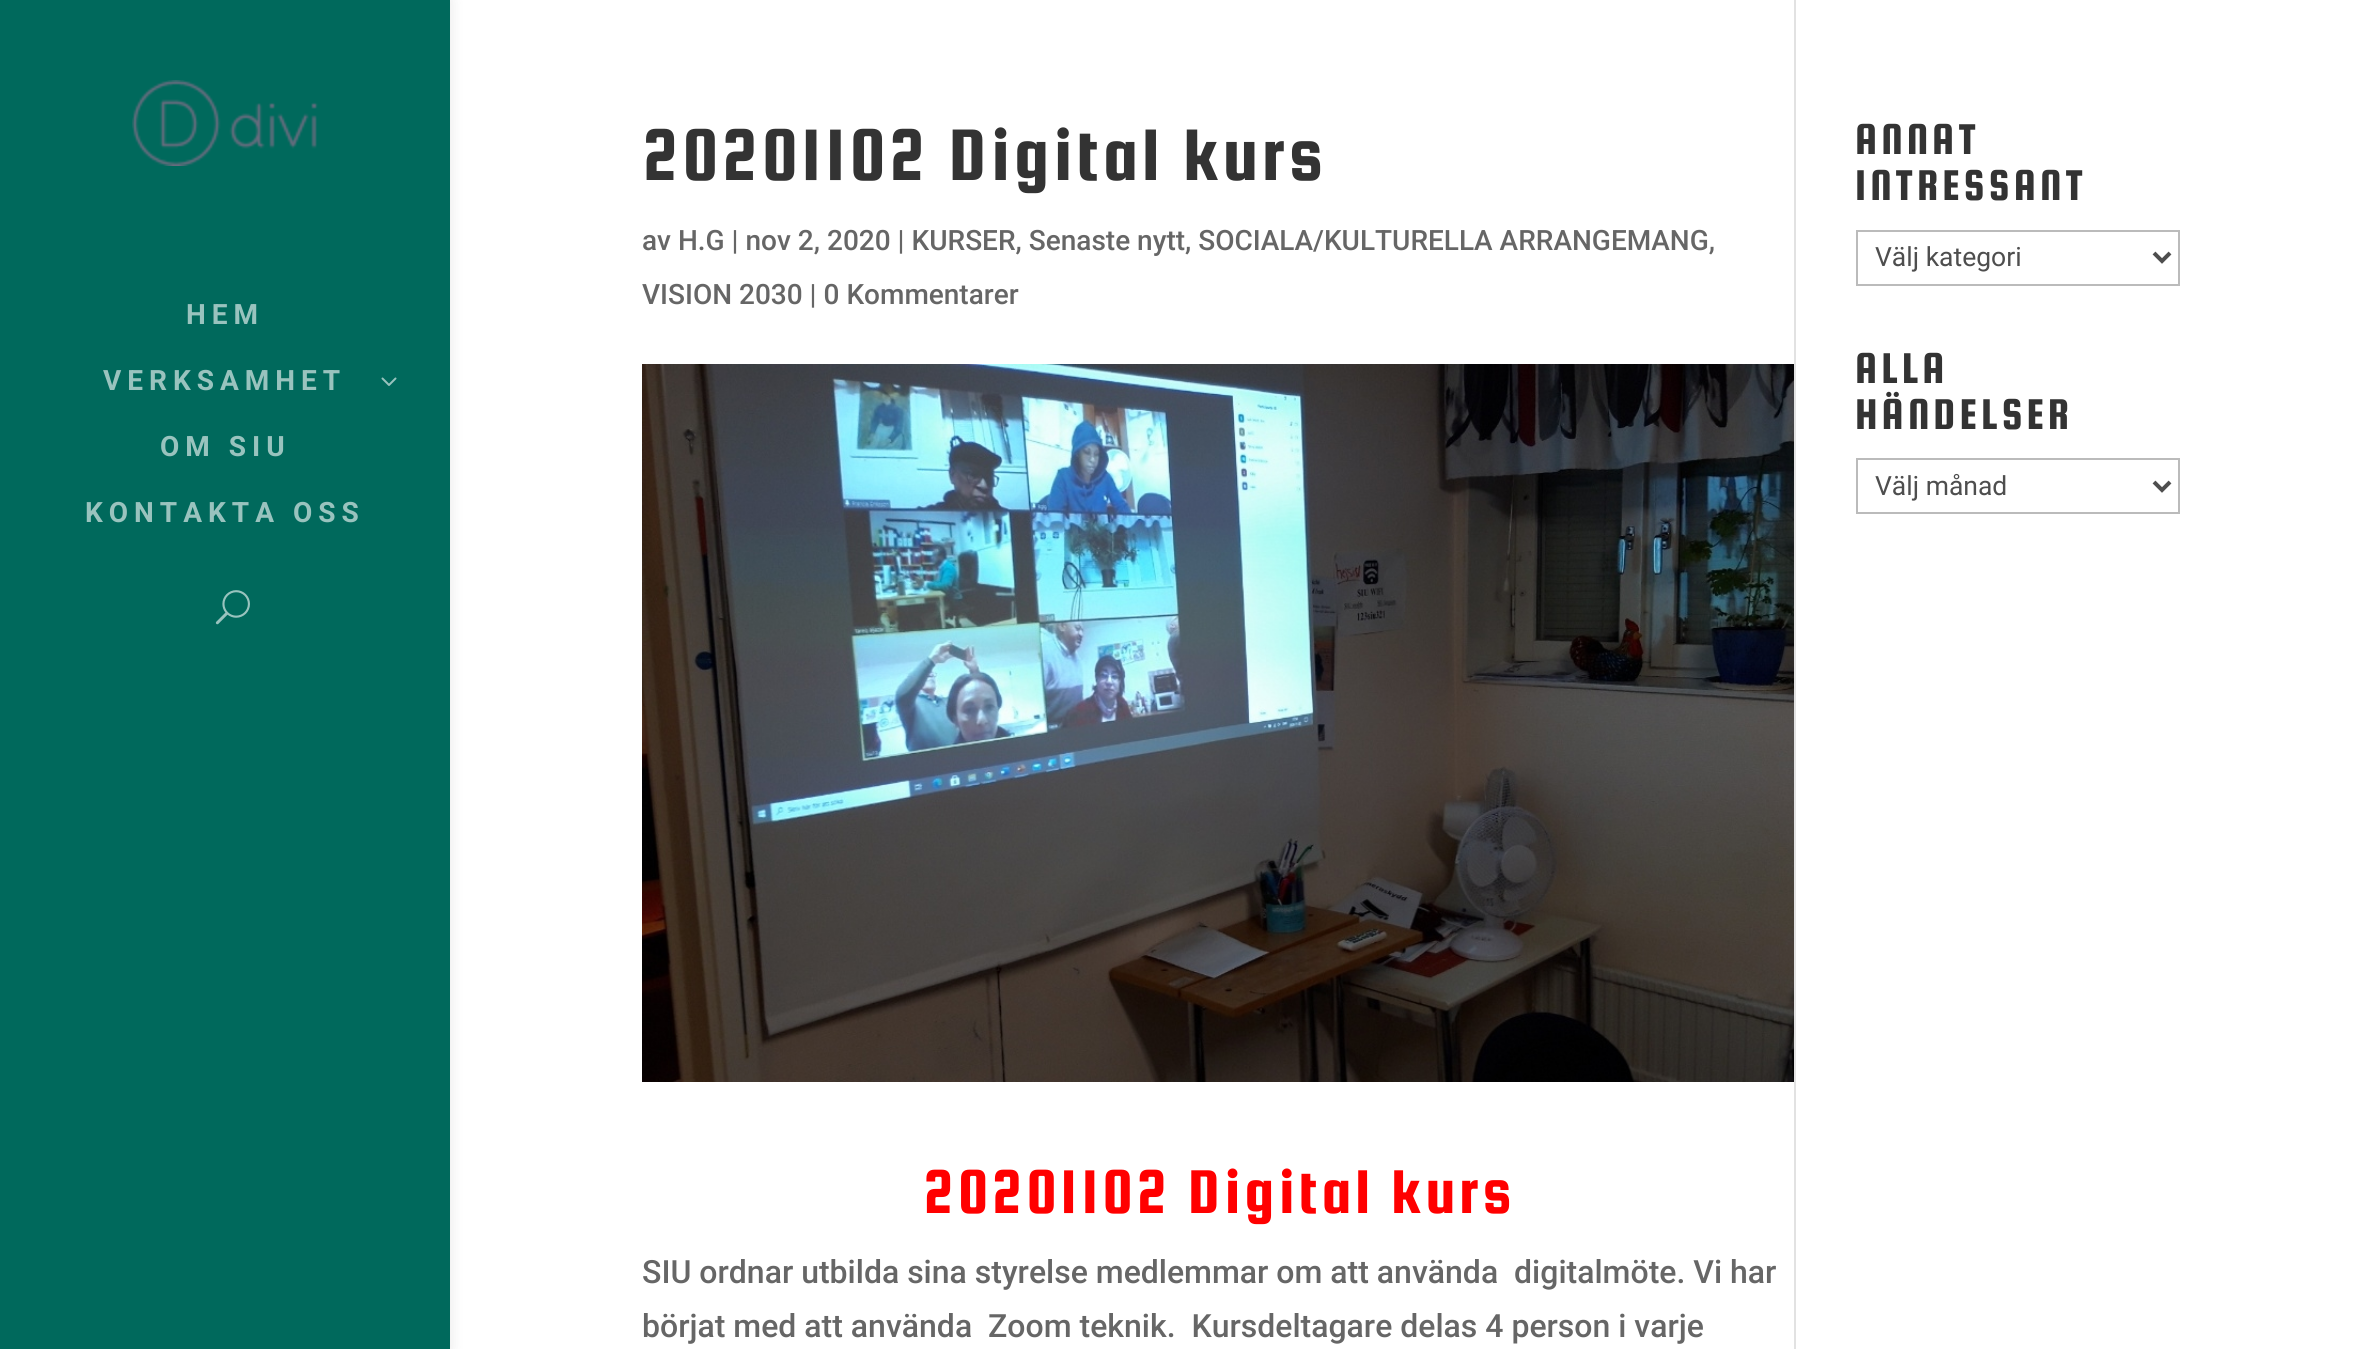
#include <cairo/cairo.h>
#include <math.h>
#include <stddef.h>

static cairo_t *cr;

static void use_color(int r, int g, int b) {
  cairo_set_source_rgb(cr, r / 255.0, g / 255.0, b / 255.0);
}

static void text(double x, double y, const char *s, const char *family, double size, int italic, int bold, int r, int g, int b) {
  cairo_select_font_face(cr, family, italic ? CAIRO_FONT_SLANT_ITALIC : CAIRO_FONT_SLANT_NORMAL,
    bold ? CAIRO_FONT_WEIGHT_BOLD : CAIRO_FONT_WEIGHT_NORMAL);
  cairo_set_font_size(cr, size);
  use_color(r, g, b);
  cairo_move_to(cr, x, y);
  cairo_show_text(cr, s);
}

static void spaced_text(double x, double y, const char *s, double letter, double word) {
  cairo_move_to(cr, x, y);
  while (*s) {
    char ch[5] = {0};
    int n = 0;
    do ch[n++] = *s++; while ((*s & 0xC0) == 0x80);
    cairo_show_text(cr, ch);
    cairo_rel_move_to(cr, letter + word * (*ch == ' '), 0);
  }
}

static void box(double x, double y, double w, double h, int r, int g, int b) {
  use_color(r, g, b);
  cairo_rectangle(cr, x, y, w, h);
  cairo_fill(cr);
}

static void round_rect(double x, double y, double w, double h, double r) {
  cairo_new_sub_path(cr);
  cairo_arc(cr, x + w - r, y + h - r, r, 0, M_PI / 2);
  cairo_arc(cr, x + r, y + h - r, r, M_PI / 2, M_PI);
  cairo_arc(cr, x + r, y + r, r, M_PI, 1.5 * M_PI);
  cairo_arc(cr, x + w - r, y + r, r, 1.5 * M_PI, 2 * M_PI);
  cairo_close_path(cr);
}

static void shadow(double x, double y, double w, double h, double r, double blur, double alpha) {
  cairo_push_group_with_content(cr, CAIRO_CONTENT_ALPHA);
  cairo_set_operator(cr, CAIRO_OPERATOR_SOURCE);
  for (int i = 15; i >= -15 && fmin(w, h) + blur * i / 3 > 0; i -= 2) {
    double e = blur * i / 6;
    cairo_set_source_rgba(cr, 0, 0, 0, alpha * erfc((i - 1) / 8.5) / 2);
    round_rect(x - e, y - e, w + 2 * e, h + 2 * e, fmax(0, fmin(r + e + blur * .6, fmin(w, h) / 2 + e)));
    cairo_fill(cr);
  }
  cairo_pattern_t *soft = cairo_pop_group(cr);
  cairo_mask(cr, soft);
  cairo_pattern_destroy(soft);
}

static void picture(const char *path, double x, double y, double w, double h) {
  cairo_surface_t *image = cairo_image_surface_create_from_png(path);
  cairo_save(cr);
  cairo_set_source_surface(cr, image, x, y);
  cairo_rectangle(cr, x, y, w, h);
  cairo_fill(cr);
  cairo_restore(cr);
  cairo_surface_destroy(image);
}

static void draw(void) {
  use_color(255, 255, 255);
  cairo_paint(cr);
  use_color(0, 0, 0);
  shadow(0, 0, 450, 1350, 0, 7, 0.1);
  box(0, 0, 450, 1349, 0, 105, 92);
  picture("img_01.png", 132, 80, 186, 86);
  picture("img_02.png", 381, 377, 16, 9);
  picture("img_03.png", 215, 590, 35, 35);
  box(1794, 0, 2, 1349, 226, 226, 226);
  picture("img_04.png", 642, 364, 1152, 718);
  cairo_rectangle(cr, 1857, 231, 322, 54);
  use_color(187, 187, 187);
  cairo_stroke(cr);
  cairo_new_path(cr);
  cairo_move_to(cr, 2154, 253);
  cairo_line_to(cr, 2162, 261);
  cairo_line_to(cr, 2170, 253);
  use_color(78, 78, 78);
  cairo_set_line_width(cr, 4);
  cairo_stroke(cr);
  cairo_rectangle(cr, 1857, 459, 322, 54);
  use_color(187, 187, 187);
  cairo_set_line_width(cr, 2);
  cairo_stroke(cr);
  cairo_new_path(cr);
  cairo_move_to(cr, 2154, 482);
  cairo_line_to(cr, 2162, 490);
  cairo_line_to(cr, 2170, 482);
  use_color(78, 78, 78);
  cairo_set_line_width(cr, 4);
  cairo_stroke(cr);
  cairo_select_font_face(cr, "Roboto", CAIRO_FONT_SLANT_NORMAL, CAIRO_FONT_WEIGHT_BOLD);
  cairo_set_font_size(cr, 28);
  use_color(153, 195, 190);
  spaced_text(186, 324, "HEM", 6, 0);
  spaced_text(103, 390, "VERKSAMHET", 6, 0);
  spaced_text(160, 456, "OM SIU", 6, 0);
  spaced_text(85, 522, "KONTAKTA OSS", 6, 0);
  cairo_select_font_face(cr, "Squada One", CAIRO_FONT_SLANT_NORMAL, CAIRO_FONT_WEIGHT_NORMAL);
  cairo_set_font_size(cr, 78);
  use_color(51, 51, 51);
  spaced_text(642, 180, "20201102 Digital kurs", 4, 0);
  text(642, 250, "av H.G | nov 2, 2020 | KURSER, Senaste nytt, SOCIALA/KULTURELLA ARRANGEMANG,", "Roboto Medium", 28, 0, 0, 102, 102, 102);
  text(642, 304, "VISION 2030 | 0 Kommentarer", "Roboto Medium", 28, 0, 0, 102, 102, 102);
  cairo_select_font_face(cr, "Squada One", CAIRO_FONT_SLANT_NORMAL, CAIRO_FONT_WEIGHT_NORMAL);
  cairo_set_font_size(cr, 66);
  use_color(255, 0, 0);
  spaced_text(923, 1213, "20201102 Digital kurs", 4, 0);
  text(642, 1283, "SIU ordnar utbilda sina styrelse medlemmar om att använda  digitalmöte. Vi har", "Roboto Medium", 32, 0, 0, 102, 102, 102);
  text(642, 1337, "börjat med att använda  Zoom teknik.  Kursdeltagare delas 4 person i varje", "Roboto Medium", 32, 0, 0, 102, 102, 102);
  cairo_select_font_face(cr, "Squada One", CAIRO_FONT_SLANT_NORMAL, CAIRO_FONT_WEIGHT_NORMAL);
  cairo_set_font_size(cr, 46);
  use_color(51, 51, 51);
  spaced_text(1855, 154, "ANNAT", 4, 0);
  spaced_text(1855, 200, "INTRESSANT", 4, 0);
  text(1875, 266, "Välj kategori", "Roboto", 26.5, 0, 0, 78, 78, 78);
  cairo_select_font_face(cr, "Squada One", CAIRO_FONT_SLANT_NORMAL, CAIRO_FONT_WEIGHT_NORMAL);
  cairo_set_font_size(cr, 46);
  use_color(51, 51, 51);
  spaced_text(1855, 383, "ALLA", 4, 0);
  spaced_text(1855, 429, "HÄNDELSER", 4, 0);
  text(1875, 495, "Välj månad", "Roboto", 26.5, 0, 0, 78, 78, 78);
}

int main(void) {
  cairo_surface_t *surface = cairo_image_surface_create(CAIRO_FORMAT_RGB24, 2371, 1349);
  cr = cairo_create(surface);
  cairo_font_options_t *options = cairo_font_options_create();
  cairo_font_options_set_hint_metrics(options, CAIRO_HINT_METRICS_OFF);
  cairo_font_options_set_hint_style(options, CAIRO_HINT_STYLE_NONE);
  cairo_set_font_options(cr, options);
  cairo_set_miter_limit(cr, 4);
  draw();
  cairo_surface_write_to_png(surface, "out.png");
  cairo_font_options_destroy(options);
  cairo_destroy(cr);
  cairo_surface_destroy(surface);
  return 0;
}
